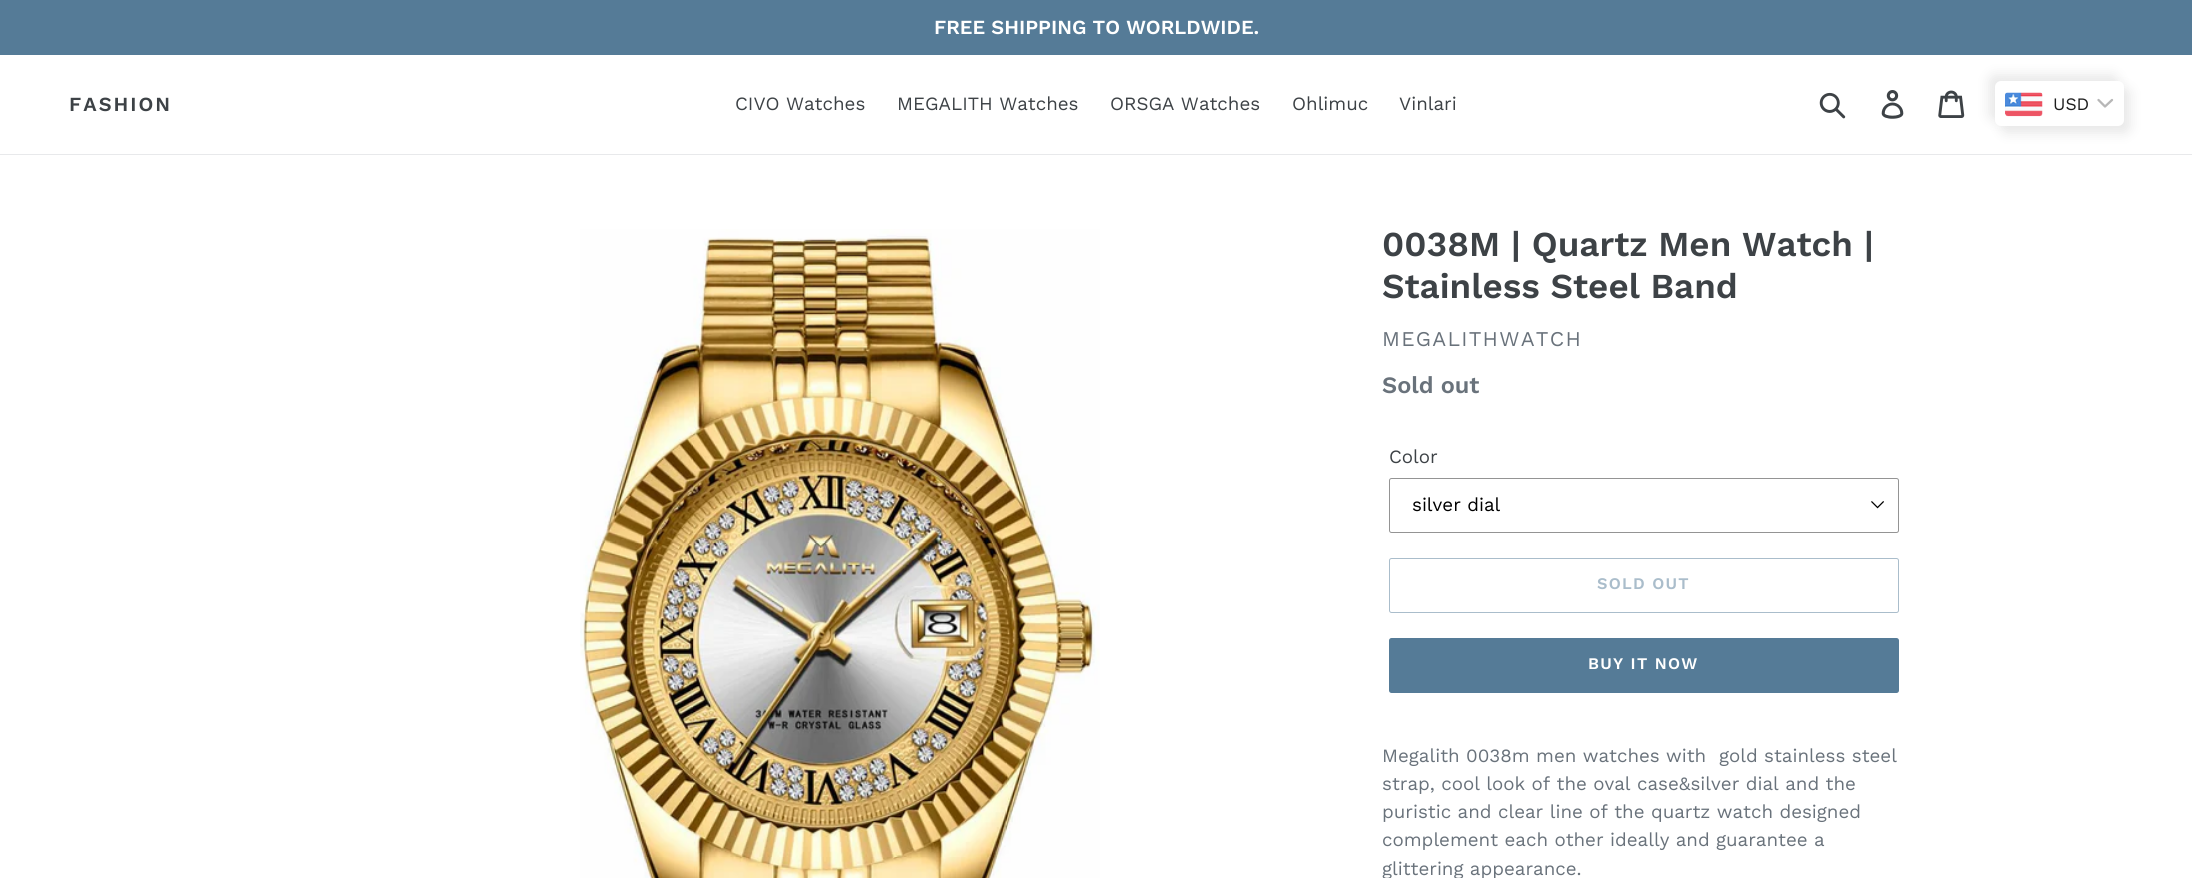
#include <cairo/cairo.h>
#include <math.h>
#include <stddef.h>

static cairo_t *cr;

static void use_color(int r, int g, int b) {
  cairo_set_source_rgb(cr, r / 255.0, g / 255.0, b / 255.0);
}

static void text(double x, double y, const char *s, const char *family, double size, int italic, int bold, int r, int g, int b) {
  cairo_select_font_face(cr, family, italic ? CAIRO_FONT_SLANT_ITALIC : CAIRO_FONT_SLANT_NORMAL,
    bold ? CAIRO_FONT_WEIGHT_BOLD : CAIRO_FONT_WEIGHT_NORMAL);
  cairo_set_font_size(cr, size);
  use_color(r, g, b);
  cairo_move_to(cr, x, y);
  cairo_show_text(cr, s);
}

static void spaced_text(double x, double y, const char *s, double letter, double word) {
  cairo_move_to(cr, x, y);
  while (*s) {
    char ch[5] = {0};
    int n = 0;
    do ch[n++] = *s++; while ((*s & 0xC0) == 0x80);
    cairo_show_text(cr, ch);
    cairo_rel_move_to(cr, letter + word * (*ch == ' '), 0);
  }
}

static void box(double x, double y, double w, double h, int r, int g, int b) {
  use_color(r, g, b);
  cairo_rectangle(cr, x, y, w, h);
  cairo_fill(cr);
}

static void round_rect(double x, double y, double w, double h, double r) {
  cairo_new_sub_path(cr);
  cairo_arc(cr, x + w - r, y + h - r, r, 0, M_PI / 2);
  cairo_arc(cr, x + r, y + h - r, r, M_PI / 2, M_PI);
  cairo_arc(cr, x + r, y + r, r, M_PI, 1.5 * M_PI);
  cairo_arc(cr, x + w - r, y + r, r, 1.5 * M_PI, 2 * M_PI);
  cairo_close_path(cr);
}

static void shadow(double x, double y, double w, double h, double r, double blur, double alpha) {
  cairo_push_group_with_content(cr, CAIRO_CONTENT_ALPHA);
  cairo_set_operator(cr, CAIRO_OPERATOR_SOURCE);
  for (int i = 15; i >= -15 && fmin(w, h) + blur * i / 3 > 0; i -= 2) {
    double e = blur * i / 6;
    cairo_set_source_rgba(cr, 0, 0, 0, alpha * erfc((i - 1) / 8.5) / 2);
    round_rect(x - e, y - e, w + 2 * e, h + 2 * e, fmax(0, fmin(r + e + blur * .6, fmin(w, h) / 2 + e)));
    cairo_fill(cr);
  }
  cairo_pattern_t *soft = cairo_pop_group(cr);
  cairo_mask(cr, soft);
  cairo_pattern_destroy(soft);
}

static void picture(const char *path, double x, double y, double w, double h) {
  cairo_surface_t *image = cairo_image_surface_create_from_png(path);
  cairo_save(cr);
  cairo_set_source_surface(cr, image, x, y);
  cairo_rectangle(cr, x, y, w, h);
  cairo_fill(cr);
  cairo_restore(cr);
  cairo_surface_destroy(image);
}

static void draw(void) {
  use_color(255, 255, 255);
  cairo_paint(cr);
  box(0, 0, 2192, 55, 85, 123, 151);
  box(0, 154, 2192, 1, 232, 233, 235);
  picture("img_01.png", 1819, 92, 27, 27);
  picture("img_02.png", 1881, 90, 23, 29);
  picture("img_03.png", 1938, 90, 27, 28);
  use_color(232, 232, 232);
  shadow(1989, 75, 129, 45, 6, 6, 1);
  shadow(2001, 88, 129, 45, 6, 6, 1);
  use_color(255, 255, 255);
  round_rect(1995, 81, 129, 45, 6);
  cairo_fill(cr);
  picture("img_04.png", 2005, 92, 38, 25);
  cairo_new_path(cr);
  cairo_move_to(cr, 2098.5, 100);
  cairo_line_to(cr, 2105, 106.5);
  cairo_line_to(cr, 2112, 100);
  use_color(183, 183, 183);
  cairo_set_line_width(cr, 2.3);
  cairo_set_line_cap(cr, CAIRO_LINE_CAP_ROUND);
  cairo_set_line_join(cr, CAIRO_LINE_JOIN_ROUND);
  cairo_stroke(cr);
  picture("img_05.png", 580, 229, 520, 649);
  picture("img_06.png", 1871, 501, 13, 8);
  round_rect(1389.5, 478.5, 509, 54, 2);
  use_color(148, 148, 148);
  cairo_set_line_width(cr, 1);
  cairo_set_line_cap(cr, CAIRO_LINE_CAP_BUTT);
  cairo_set_line_join(cr, CAIRO_LINE_JOIN_MITER);
  cairo_stroke(cr);
  round_rect(1389.5, 558.5, 509, 54, 2);
  use_color(170, 189, 203);
  cairo_stroke(cr);
  use_color(85, 123, 151);
  round_rect(1389, 638, 510, 55, 2.5);
  cairo_fill(cr);
  text(934, 34, "FREE SHIPPING TO WORLDWIDE.", "Work Sans SemiBold", 20, 0, 0, 255, 255, 255);
  use_color(61, 66, 70);
  spaced_text(69, 111, "FASHION", 2, 0);
  text(735, 110, "CIVO Watches", "Work Sans", 18.75, 0, 0, 61, 66, 70);
  text(897, 110, "MEGALITH Watches", "Work Sans", 18.75, 0, 0, 61, 66, 70);
  text(1110, 110, "ORSGA Watches", "Work Sans", 18.75, 0, 0, 61, 66, 70);
  text(1292, 110, "Ohlimuc", "Work Sans", 18.75, 0, 0, 61, 66, 70);
  text(1399, 110, "Vinlari", "Work Sans", 18.75, 0, 0, 61, 66, 70);
  text(2053, 110, "USD", "Work Sans", 17.5, 0, 0, 30, 30, 30);
  text(1382, 256, "0038M | Quartz Men Watch |", "Work Sans SemiBold", 35, 0, 0, 61, 66, 70);
  text(1382, 298, "Stainless Steel Band", "Work Sans SemiBold", 35, 0, 0, 61, 66, 70);
  cairo_select_font_face(cr, "Work Sans", CAIRO_FONT_SLANT_NORMAL, CAIRO_FONT_WEIGHT_NORMAL);
  cairo_set_font_size(cr, 21);
  use_color(105, 114, 123);
  spaced_text(1382, 346, "MEGALITHWATCH", 1.25, 0);
  text(1382, 393, "Sold out", "Work Sans SemiBold", 23.5, 0, 0, 105, 114, 123);
  text(1389, 463, "Color", "Work Sans", 18.75, 0, 0, 61, 66, 70);
  text(1412, 511, "silver dial", "Work Sans", 18.75, 0, 0, 0, 0, 0);
  cairo_select_font_face(cr, "Work Sans SemiBold", CAIRO_FONT_SLANT_NORMAL, CAIRO_FONT_WEIGHT_NORMAL);
  cairo_set_font_size(cr, 16.25);
  use_color(170, 189, 203);
  spaced_text(1597, 589, "SOLD OUT", 1.25, 0);
  use_color(255, 255, 255);
  spaced_text(1588, 669, "BUY IT NOW", 1.25, 0);
  text(1382, 762, "Megalith 0038m men watches with  gold stainless steel", "Work Sans", 18.75, 0, 0, 105, 114, 123);
  text(1382, 790, "strap, cool look of the oval case&silver dial and the", "Work Sans", 18.75, 0, 0, 105, 114, 123);
  text(1382, 818, "puristic and clear line of the quartz watch designed", "Work Sans", 18.75, 0, 0, 105, 114, 123);
  text(1382, 846, "complement each other ideally and guarantee a", "Work Sans", 18.75, 0, 0, 105, 114, 123);
  text(1382, 875, "glittering appearance.", "Work Sans", 18.75, 0, 0, 105, 114, 123);
}

int main(void) {
  cairo_surface_t *surface = cairo_image_surface_create(CAIRO_FORMAT_RGB24, 2192, 878);
  cr = cairo_create(surface);
  cairo_font_options_t *options = cairo_font_options_create();
  cairo_font_options_set_hint_metrics(options, CAIRO_HINT_METRICS_OFF);
  cairo_font_options_set_hint_style(options, CAIRO_HINT_STYLE_NONE);
  cairo_set_font_options(cr, options);
  cairo_set_miter_limit(cr, 4);
  draw();
  cairo_surface_write_to_png(surface, "out.png");
  cairo_font_options_destroy(options);
  cairo_destroy(cr);
  cairo_surface_destroy(surface);
  return 0;
}
